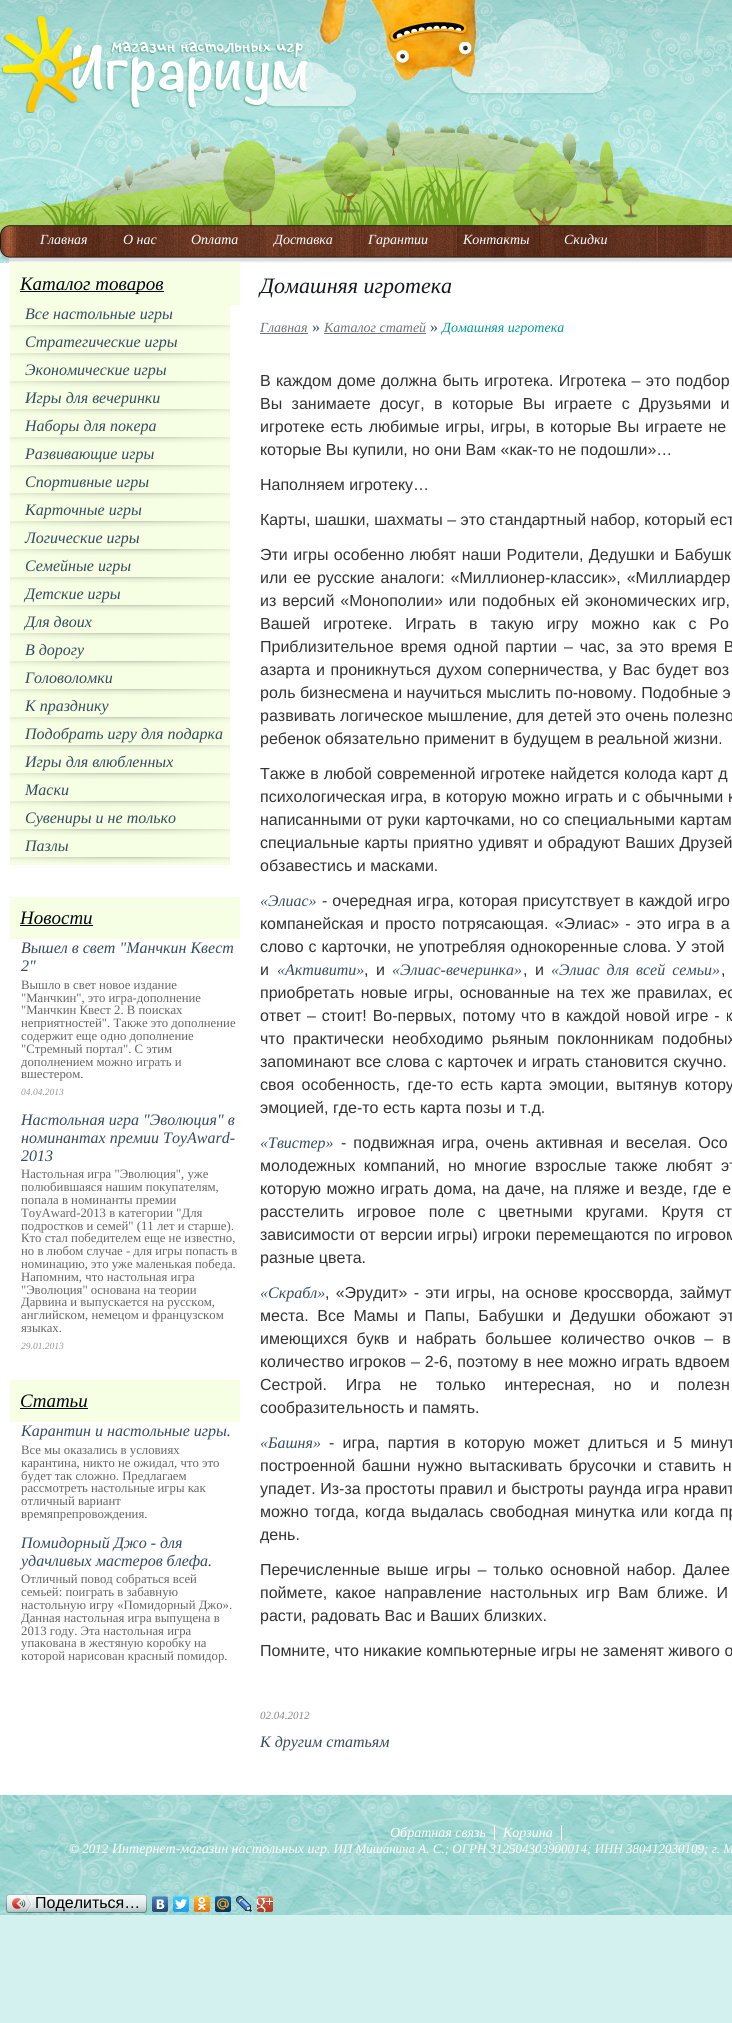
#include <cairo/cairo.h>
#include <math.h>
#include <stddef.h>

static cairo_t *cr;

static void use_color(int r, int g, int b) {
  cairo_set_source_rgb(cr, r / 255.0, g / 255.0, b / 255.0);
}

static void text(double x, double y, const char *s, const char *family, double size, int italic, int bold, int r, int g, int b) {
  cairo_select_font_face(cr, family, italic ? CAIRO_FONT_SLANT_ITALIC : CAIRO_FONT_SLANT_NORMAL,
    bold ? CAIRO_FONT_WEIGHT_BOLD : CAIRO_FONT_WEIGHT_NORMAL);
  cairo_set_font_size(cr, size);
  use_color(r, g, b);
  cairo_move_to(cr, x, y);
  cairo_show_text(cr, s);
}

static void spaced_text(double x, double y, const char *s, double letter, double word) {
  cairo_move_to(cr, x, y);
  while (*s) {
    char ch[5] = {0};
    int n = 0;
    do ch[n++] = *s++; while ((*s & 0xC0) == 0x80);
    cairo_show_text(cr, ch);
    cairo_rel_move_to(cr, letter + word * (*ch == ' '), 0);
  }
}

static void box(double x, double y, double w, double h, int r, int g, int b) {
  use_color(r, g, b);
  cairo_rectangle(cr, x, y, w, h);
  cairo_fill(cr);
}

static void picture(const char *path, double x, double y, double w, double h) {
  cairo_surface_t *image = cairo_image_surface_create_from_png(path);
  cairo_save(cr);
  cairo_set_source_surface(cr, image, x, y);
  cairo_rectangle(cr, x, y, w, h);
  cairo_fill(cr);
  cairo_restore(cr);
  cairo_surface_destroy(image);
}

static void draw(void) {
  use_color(210, 241, 239);
  cairo_paint(cr);
  picture("img_01.png", 0, 0, 732, 263);
  picture("img_02.png", 0, 1795, 732, 120);
  picture("img_03.png", 1, 16, 307, 97);
  picture("img_04.png", 0, 225, 732, 38);
  box(0, 263, 732, 1532, 255, 255, 255);
  box(10, 263, 230, 42, 246, 255, 227);
  box(20, 291, 144, 1, 1, 9, 12);
  box(10, 305, 220, 560, 246, 255, 227);
  picture("img_05.png", 10, 325, 220, 6);
  picture("img_05.png", 10, 353, 220, 6);
  picture("img_05.png", 10, 381, 220, 6);
  picture("img_05.png", 10, 409, 220, 6);
  picture("img_05.png", 10, 437, 220, 6);
  picture("img_05.png", 10, 465, 220, 6);
  picture("img_05.png", 10, 493, 220, 6);
  picture("img_05.png", 10, 521, 220, 6);
  picture("img_05.png", 10, 549, 220, 6);
  picture("img_05.png", 10, 577, 220, 6);
  picture("img_05.png", 10, 605, 220, 6);
  picture("img_05.png", 10, 633, 220, 6);
  picture("img_05.png", 10, 661, 220, 6);
  picture("img_05.png", 10, 689, 220, 6);
  picture("img_05.png", 10, 717, 220, 6);
  picture("img_05.png", 10, 745, 220, 6);
  picture("img_05.png", 10, 773, 220, 6);
  picture("img_05.png", 10, 801, 220, 6);
  picture("img_05.png", 10, 829, 220, 6);
  picture("img_05.png", 10, 857, 220, 6);
  box(10, 897, 230, 42, 246, 255, 227);
  box(20, 925, 73, 1, 1, 9, 12);
  box(10, 1380, 230, 42, 246, 255, 227);
  box(20, 1408, 68, 1, 1, 9, 12);
  box(260, 333, 48, 1, 112, 115, 117);
  box(324, 333, 102, 1, 112, 115, 117);
  box(494, 1825, 1, 15, 255, 255, 255);
  box(561, 1825, 1, 15, 255, 255, 255);
  picture("img_06.png", 9, 1894, 135, 19);
  picture("img_07.png", 6, 1894, 3, 19);
  picture("img_08.png", 12, 1895, 20, 17);
  picture("img_09.png", 144, 1894, 3, 19);
  picture("img_10.png", 152, 1896, 16, 16);
  picture("img_11.png", 173, 1896, 16, 16);
  picture("img_12.png", 194, 1896, 16, 16);
  picture("img_13.png", 215, 1896, 16, 16);
  picture("img_14.png", 236, 1896, 16, 16);
  picture("img_15.png", 257, 1896, 16, 16);
  text(40, 244, "Главная", "Liberation Serif", 14, 1, 0, 255, 255, 255);
  text(123, 244, "О нас", "Liberation Serif", 14, 1, 0, 255, 255, 255);
  text(191, 244, "Оплата", "Liberation Serif", 14, 1, 0, 255, 255, 255);
  text(274, 244, "Доставка", "Liberation Serif", 14, 1, 0, 255, 255, 255);
  text(368, 244, "Гарантии", "Liberation Serif", 14, 1, 0, 255, 255, 255);
  text(463, 244, "Контакты", "Liberation Serif", 14, 1, 0, 255, 255, 255);
  text(564, 244, "Скидки", "Liberation Serif", 14, 1, 0, 255, 255, 255);
  text(20, 290, "Каталог товаров", "Liberation Serif", 19, 1, 0, 1, 9, 12);
  text(25, 319, "Все настольные игры", "Liberation Serif", 16, 1, 0, 54, 76, 93);
  text(25, 347, "Стратегические игры", "Liberation Serif", 16, 1, 0, 54, 76, 93);
  text(25, 375, "Экономические игры", "Liberation Serif", 16, 1, 0, 54, 76, 93);
  text(25, 403, "Игры для вечеринки", "Liberation Serif", 16, 1, 0, 54, 76, 93);
  text(25, 431, "Наборы для покера", "Liberation Serif", 16, 1, 0, 54, 76, 93);
  text(25, 459, "Развивающие игры", "Liberation Serif", 16, 1, 0, 54, 76, 93);
  text(25, 487, "Спортивные игры", "Liberation Serif", 16, 1, 0, 54, 76, 93);
  text(25, 515, "Карточные игры", "Liberation Serif", 16, 1, 0, 54, 76, 93);
  text(25, 543, "Логические игры", "Liberation Serif", 16, 1, 0, 54, 76, 93);
  text(25, 571, "Семейные игры", "Liberation Serif", 16, 1, 0, 54, 76, 93);
  text(25, 599, "Детские игры", "Liberation Serif", 16, 1, 0, 54, 76, 93);
  text(25, 627, "Для двоих", "Liberation Serif", 16, 1, 0, 54, 76, 93);
  text(25, 655, "В дорогу", "Liberation Serif", 16, 1, 0, 54, 76, 93);
  text(25, 683, "Головоломки", "Liberation Serif", 16, 1, 0, 54, 76, 93);
  text(25, 711, "К празднику", "Liberation Serif", 16, 1, 0, 54, 76, 93);
  text(25, 739, "Подобрать игру для подарка", "Liberation Serif", 16, 1, 0, 54, 76, 93);
  text(25, 767, "Игры для влюбленных", "Liberation Serif", 16, 1, 0, 54, 76, 93);
  text(25, 795, "Маски", "Liberation Serif", 16, 1, 0, 54, 76, 93);
  text(25, 823, "Сувениры и не только", "Liberation Serif", 16, 1, 0, 54, 76, 93);
  text(25, 851, "Пазлы", "Liberation Serif", 16, 1, 0, 54, 76, 93);
  text(20, 924, "Новости", "Liberation Serif", 19, 1, 0, 1, 9, 12);
  text(21, 953, "Вышел в свет \"Манчкин Квест", "Liberation Serif", 16, 1, 0, 54, 76, 93);
  text(21, 971, "2\"", "Liberation Serif", 16, 1, 0, 54, 76, 93);
  text(21, 989, "Вышло в свет новое издание", "Liberation Serif", 12.75, 0, 0, 102, 102, 102);
  text(21, 1002, "\"Манчкин\", это игра-дополнение", "Liberation Serif", 12.75, 0, 0, 102, 102, 102);
  text(21, 1014, "\"Манчкин Квест 2. В поисках", "Liberation Serif", 12.75, 0, 0, 102, 102, 102);
  text(21, 1027, "неприятностей\". Также это дополнение", "Liberation Serif", 12.75, 0, 0, 102, 102, 102);
  text(21, 1040, "содержит еще одно дополнение", "Liberation Serif", 12.75, 0, 0, 102, 102, 102);
  text(21, 1053, "\"Стремный портал\". С этим", "Liberation Serif", 12.75, 0, 0, 102, 102, 102);
  text(21, 1066, "дополнением можно играть и", "Liberation Serif", 12.75, 0, 0, 102, 102, 102);
  text(21, 1078, "вшестером.", "Liberation Serif", 12.75, 0, 0, 102, 102, 102);
  text(21, 1095, "04.04.2013", "Liberation Serif", 9.5, 1, 0, 153, 153, 153);
  text(21, 1125, "Настольная игра \"Эволюция\" в", "Liberation Serif", 16, 1, 0, 54, 76, 93);
  text(21, 1143, "номинантах премии ToyAward-", "Liberation Serif", 16, 1, 0, 54, 76, 93);
  text(21, 1161, "2013", "Liberation Serif", 16, 1, 0, 54, 76, 93);
  text(21, 1178, "Настольная игра \"Эволюция\", уже", "Liberation Serif", 12.75, 0, 0, 102, 102, 102);
  text(21, 1191, "полюбившаяся нашим покупателям,", "Liberation Serif", 12.75, 0, 0, 102, 102, 102);
  text(21, 1204, "попала в номинанты премии", "Liberation Serif", 12.75, 0, 0, 102, 102, 102);
  text(21, 1217, "ToyAward-2013 в категории \"Для", "Liberation Serif", 12.75, 0, 0, 102, 102, 102);
  text(21, 1230, "подростков и семей\" (11 лет и старше).", "Liberation Serif", 12.75, 0, 0, 102, 102, 102);
  text(21, 1242, "Кто стал победителем еще не известно,", "Liberation Serif", 12.75, 0, 0, 102, 102, 102);
  text(21, 1255, "но в любом случае - для игры попасть в", "Liberation Serif", 12.75, 0, 0, 102, 102, 102);
  text(21, 1268, "номинацию, это уже маленькая победа.", "Liberation Serif", 12.75, 0, 0, 102, 102, 102);
  text(21, 1281, "Напомним, что настольная игра", "Liberation Serif", 12.75, 0, 0, 102, 102, 102);
  text(21, 1294, "\"Эволюция\" основана на теории", "Liberation Serif", 12.75, 0, 0, 102, 102, 102);
  text(21, 1306, "Дарвина и выпускается на русском,", "Liberation Serif", 12.75, 0, 0, 102, 102, 102);
  text(21, 1319, "английском, немецом и французском", "Liberation Serif", 12.75, 0, 0, 102, 102, 102);
  text(21, 1332, "языках.", "Liberation Serif", 12.75, 0, 0, 102, 102, 102);
  text(21, 1349, "29.01.2013", "Liberation Serif", 9.5, 1, 0, 153, 153, 153);
  text(20, 1407, "Статьи", "Liberation Serif", 19, 1, 0, 1, 9, 12);
  text(21, 1436, "Карантин и настольные игры.", "Liberation Serif", 16, 1, 0, 54, 76, 93);
  text(21, 1454, "Все мы оказались в условиях", "Liberation Serif", 12.75, 0, 0, 102, 102, 102);
  text(21, 1467, "карантина, никто не ожидал, что это", "Liberation Serif", 12.75, 0, 0, 102, 102, 102);
  text(21, 1480, "будет так сложно. Предлагаем", "Liberation Serif", 12.75, 0, 0, 102, 102, 102);
  text(21, 1492, "рассмотреть настольные игры как", "Liberation Serif", 12.75, 0, 0, 102, 102, 102);
  text(21, 1505, "отличный вариант", "Liberation Serif", 12.75, 0, 0, 102, 102, 102);
  text(21, 1518, "времяпрепровождения.", "Liberation Serif", 12.75, 0, 0, 102, 102, 102);
  text(21, 1548, "Помидорный Джо - для", "Liberation Serif", 16, 1, 0, 54, 76, 93);
  text(21, 1566, "удачливых мастеров блефа.", "Liberation Serif", 16, 1, 0, 54, 76, 93);
  text(21, 1583, "Отличный повод собраться всей", "Liberation Serif", 12.75, 0, 0, 102, 102, 102);
  text(21, 1596, "семьей: поиграть в забавную", "Liberation Serif", 12.75, 0, 0, 102, 102, 102);
  text(21, 1609, "настольную игру «Помидорный Джо».", "Liberation Serif", 12.75, 0, 0, 102, 102, 102);
  text(21, 1622, "Данная настольная игра выпущена в", "Liberation Serif", 12.75, 0, 0, 102, 102, 102);
  text(21, 1635, "2013 году. Эта настольная игра", "Liberation Serif", 12.75, 0, 0, 102, 102, 102);
  text(21, 1647, "упакована в жестяную коробку на", "Liberation Serif", 12.75, 0, 0, 102, 102, 102);
  text(21, 1660, "которой нарисован красный помидор.", "Liberation Serif", 12.75, 0, 0, 102, 102, 102);
  text(260, 293, "Домашняя игротека", "Liberation Serif", 22, 1, 0, 17, 25, 28);
  text(260, 332, "Главная", "Liberation Serif", 14, 1, 0, 112, 115, 117);
  text(312, 332, "»", "Liberation Serif", 16, 0, 0, 54, 76, 93);
  text(324, 332, "Каталог статей", "Liberation Serif", 14, 1, 0, 112, 115, 117);
  text(430, 332, "»", "Liberation Serif", 16, 0, 0, 54, 76, 93);
  text(442, 332, "Домашняя игротека", "Liberation Serif", 14, 1, 0, 0, 153, 153);
  cairo_select_font_face(cr, "Liberation Sans", CAIRO_FONT_SLANT_NORMAL, CAIRO_FONT_WEIGHT_NORMAL);
  cairo_set_font_size(cr, 16);
  use_color(51, 51, 51);
  spaced_text(260, 386, "В каждом доме должна быть игротека. Игротека – это подбор", 0, 1);
  spaced_text(260, 409, "Вы занимаете досуг, в которые Вы играете с Друзьями и", 0, 5);
  spaced_text(260, 432, "игротеке есть любимые игры, игры, в которые Вы играете не", 0, 1.25);
  text(260, 455, "которые Вы купили, но они Вам «как-то не подошли»…", "Liberation Sans", 16, 0, 0, 51, 51, 51);
  text(260, 490, "Наполняем игротеку…", "Liberation Sans", 16, 0, 0, 51, 51, 51);
  text(260, 525, "Карты, шашки, шахматы – это стандартный набор, который ест", "Liberation Sans", 16, 0, 0, 51, 51, 51);
  spaced_text(260, 560, "Эти игры особенно любят наши Родители, Дедушки и Бабушк", 0, 1);
  spaced_text(260, 583, "или ее русские аналоги: «Миллионер-классик», «Миллиардер", 0, 1.5);
  spaced_text(260, 606, "из версий «Монополии» или подобных ей экономических игр,", 0, 1.5);
  spaced_text(260, 629, "Вашей игротеке. Играть в такую игру можно как с Ро", 0, 8.5);
  spaced_text(260, 652, "Приблизительное время одной партии – час, за это время В", 0, 2.5);
  spaced_text(260, 675, "азарта и проникнуться духом соперничества, у Вас будет воз", 0, 1.25);
  text(260, 698, "роль бизнесмена и научиться мыслить по-новому. Подобные э", "Liberation Sans", 16, 0, 0, 51, 51, 51);
  text(260, 721, "развивать логическое мышление, для детей это очень полезно", "Liberation Sans", 16, 0, 0, 51, 51, 51);
  text(260, 744, "ребенок обязательно применит в будущем в реальной жизни.", "Liberation Sans", 16, 0, 0, 51, 51, 51);
  spaced_text(260, 779, "Также в любой современной игротеке найдется колода карт д", 0, 0.5);
  spaced_text(260, 802, "психологическая игра, в которую можно играть и с обычными к", 0, 0.5);
  spaced_text(260, 825, "написанными от руки карточками, но со специальными картам", 0, 0.5);
  spaced_text(260, 848, "специальные карты приятно удивят и обрадуют Ваших Друзей", 0, 0.5);
  text(260, 871, "обзавестись и масками.", "Liberation Sans", 16, 0, 0, 51, 51, 51);
  text(260, 906, "«Элиас»", "Liberation Serif", 16, 1, 0, 54, 76, 93);
  cairo_select_font_face(cr, "Liberation Sans", CAIRO_FONT_SLANT_NORMAL, CAIRO_FONT_WEIGHT_NORMAL);
  use_color(51, 51, 51);
  spaced_text(322, 906, "- очередная игра, которая присутствует в каждой игро", 0, 0.5);
  spaced_text(260, 929, "компанейская и просто потрясающая. «Элиас» - это игра в а", 0, 1.75);
  spaced_text(260, 952, "слово с карточки, не употребляя однокоренные слова. У этой", 0, 0.5);
  text(260, 975, "и", "Liberation Sans", 16, 0, 0, 51, 51, 51);
  text(277, 975, "«Активити»", "Liberation Serif", 16, 1, 0, 54, 76, 93);
  cairo_select_font_face(cr, "Liberation Sans", CAIRO_FONT_SLANT_NORMAL, CAIRO_FONT_WEIGHT_NORMAL);
  use_color(51, 51, 51);
  spaced_text(364, 975, ", и", 0, 3);
  text(392, 975, "«Элиас-вечеринка»", "Liberation Serif", 16, 1, 0, 54, 76, 93);
  cairo_select_font_face(cr, "Liberation Sans", CAIRO_FONT_SLANT_NORMAL, CAIRO_FONT_WEIGHT_NORMAL);
  use_color(51, 51, 51);
  spaced_text(523, 975, ", и", 0, 3);
  cairo_select_font_face(cr, "Liberation Serif", CAIRO_FONT_SLANT_ITALIC, CAIRO_FONT_WEIGHT_NORMAL);
  use_color(54, 76, 93);
  spaced_text(551, 975, "«Элиас для всей семьи»", 0, 3);
  cairo_select_font_face(cr, "Liberation Sans", CAIRO_FONT_SLANT_NORMAL, CAIRO_FONT_WEIGHT_NORMAL);
  use_color(51, 51, 51);
  spaced_text(721, 975, ",", 0, 3);
  spaced_text(260, 998, "приобретать новые игры, основанные на тех же правилах, ес", 0, 2);
  spaced_text(260, 1021, "ответ – стоит! Во-первых, потому что в каждой новой игре - к", 0, 1.5);
  spaced_text(260, 1044, "что практически необходимо рьяным поклонникам подобных", 0, 4);
  spaced_text(260, 1067, "запоминают все слова с карточек и играть становится скучно.", 0, 0.5);
  spaced_text(260, 1090, "своя особенность, где-то есть карта эмоции, вытянув котору", 0, 3);
  text(260, 1113, "эмоцией, где-то есть карта позы и т.д.", "Liberation Sans", 16, 0, 0, 51, 51, 51);
  text(260, 1148, "«Твистер»", "Liberation Serif", 16, 1, 0, 54, 76, 93);
  cairo_select_font_face(cr, "Liberation Sans", CAIRO_FONT_SLANT_NORMAL, CAIRO_FONT_WEIGHT_NORMAL);
  use_color(51, 51, 51);
  spaced_text(341, 1148, "- подвижная игра, очень активная и веселая. Осо", 0, 2.5);
  spaced_text(260, 1171, "молодежных компаний, но многие взрослые также любят эт", 0, 4);
  spaced_text(260, 1194, "которую можно играть дома, на даче, на пляже и везде, где е", 0, 1);
  spaced_text(260, 1217, "расстелить игровое поле с цветными кругами. Крутя ст", 0, 8.5);
  spaced_text(260, 1240, "зависимости от версии игры) игроки перемещаются по игровом", 0, 0.25);
  text(260, 1263, "разные цвета.", "Liberation Sans", 16, 0, 0, 51, 51, 51);
  text(260, 1298, "«Скрабл»", "Liberation Serif", 16, 1, 0, 54, 76, 93);
  cairo_select_font_face(cr, "Liberation Sans", CAIRO_FONT_SLANT_NORMAL, CAIRO_FONT_WEIGHT_NORMAL);
  use_color(51, 51, 51);
  spaced_text(325, 1298, ", «Эрудит» - эти игры, на основе кроссворда, займут", 0, 1.75);
  spaced_text(260, 1321, "места. Все Мамы и Папы, Бабушки и Дедушки обожают эт", 0, 4.25);
  spaced_text(260, 1344, "имеющихся букв и набрать большее количество очков – в", 0, 4.5);
  spaced_text(260, 1367, "количество игроков – 2-6, поэтому в нее можно играть вдвоем", 0, 0.5);
  spaced_text(260, 1390, "Сестрой. Игра не только интересная, но и полезн", 0, 14.25);
  text(260, 1413, "сообразительность и память.", "Liberation Sans", 16, 0, 0, 51, 51, 51);
  text(260, 1448, "«Башня»", "Liberation Serif", 16, 1, 0, 54, 76, 93);
  cairo_select_font_face(cr, "Liberation Sans", CAIRO_FONT_SLANT_NORMAL, CAIRO_FONT_WEIGHT_NORMAL);
  use_color(51, 51, 51);
  spaced_text(329, 1448, "- игра, партия в которую может длиться и 5 минут", 0, 3.75);
  spaced_text(260, 1471, "построенной башни нужно вытаскивать брусочки и ставить н", 0, 2.25);
  spaced_text(260, 1494, "упадет. Из-за простоты правил и быстроты раунда игра нравит", 0, 0.25);
  spaced_text(260, 1517, "можно тогда, когда выдалась свободная минутка или когда пр", 0, 1.5);
  text(260, 1540, "день.", "Liberation Sans", 16, 0, 0, 51, 51, 51);
  spaced_text(260, 1575, "Перечисленные выше игры – только основной набор. Далее", 0, 2.5);
  spaced_text(260, 1598, "поймете, какое направление настольных игр Вам ближе. И", 0, 3.75);
  text(260, 1621, "расти, радовать Вас и Ваших близких.", "Liberation Sans", 16, 0, 0, 51, 51, 51);
  text(260, 1656, "Помните, что никакие компьютерные игры не заменят живого о", "Liberation Sans", 16, 0, 0, 51, 51, 51);
  text(260, 1719, "02.04.2012", "Liberation Serif", 11, 1, 0, 136, 136, 136);
  text(260, 1747, "К другим статьям", "Liberation Serif", 16, 1, 0, 54, 76, 93);
  text(390, 1837, "Обратная связь", "Liberation Serif", 14, 1, 0, 255, 255, 255);
  text(503, 1837, "Корзина", "Liberation Serif", 14, 1, 0, 255, 255, 255);
  text(69, 1853, "© 2012", "Liberation Serif", 13, 1, 0, 255, 255, 255);
  text(112, 1853, "Интернет-магазин настольных игр", "Liberation Serif", 14, 1, 0, 255, 255, 255);
  text(327, 1853, ". ИП Мишанина А. С.; ОГРН 312504303900014; ИНН 380412030109; г. М", "Liberation Serif", 13, 1, 0, 255, 255, 255);
  text(35, 1908, "Поделиться…", "Liberation Sans", 16, 0, 0, 0, 0, 0);
}

int main(void) {
  cairo_surface_t *surface = cairo_image_surface_create(CAIRO_FORMAT_RGB24, 732, 2023);
  cr = cairo_create(surface);
  cairo_font_options_t *options = cairo_font_options_create();
  cairo_font_options_set_hint_metrics(options, CAIRO_HINT_METRICS_OFF);
  cairo_font_options_set_hint_style(options, CAIRO_HINT_STYLE_NONE);
  cairo_set_font_options(cr, options);
  cairo_set_miter_limit(cr, 4);
  draw();
  cairo_surface_write_to_png(surface, "out.png");
  cairo_font_options_destroy(options);
  cairo_destroy(cr);
  cairo_surface_destroy(surface);
  return 0;
}
